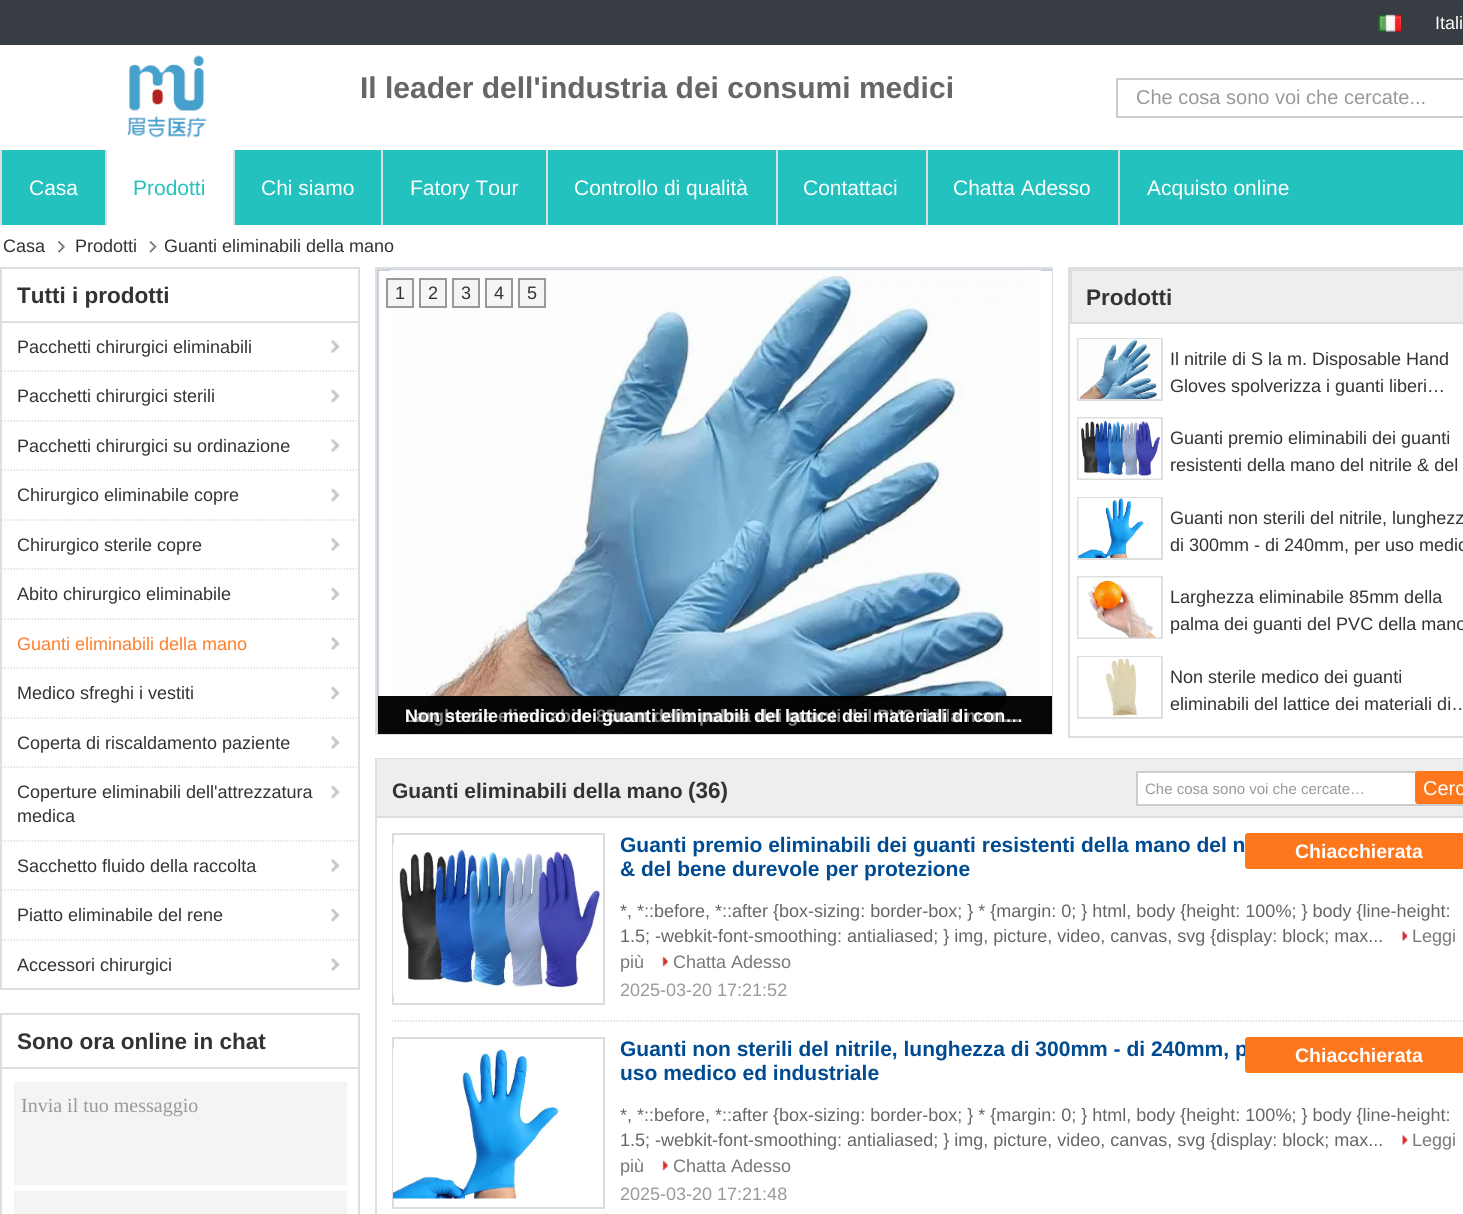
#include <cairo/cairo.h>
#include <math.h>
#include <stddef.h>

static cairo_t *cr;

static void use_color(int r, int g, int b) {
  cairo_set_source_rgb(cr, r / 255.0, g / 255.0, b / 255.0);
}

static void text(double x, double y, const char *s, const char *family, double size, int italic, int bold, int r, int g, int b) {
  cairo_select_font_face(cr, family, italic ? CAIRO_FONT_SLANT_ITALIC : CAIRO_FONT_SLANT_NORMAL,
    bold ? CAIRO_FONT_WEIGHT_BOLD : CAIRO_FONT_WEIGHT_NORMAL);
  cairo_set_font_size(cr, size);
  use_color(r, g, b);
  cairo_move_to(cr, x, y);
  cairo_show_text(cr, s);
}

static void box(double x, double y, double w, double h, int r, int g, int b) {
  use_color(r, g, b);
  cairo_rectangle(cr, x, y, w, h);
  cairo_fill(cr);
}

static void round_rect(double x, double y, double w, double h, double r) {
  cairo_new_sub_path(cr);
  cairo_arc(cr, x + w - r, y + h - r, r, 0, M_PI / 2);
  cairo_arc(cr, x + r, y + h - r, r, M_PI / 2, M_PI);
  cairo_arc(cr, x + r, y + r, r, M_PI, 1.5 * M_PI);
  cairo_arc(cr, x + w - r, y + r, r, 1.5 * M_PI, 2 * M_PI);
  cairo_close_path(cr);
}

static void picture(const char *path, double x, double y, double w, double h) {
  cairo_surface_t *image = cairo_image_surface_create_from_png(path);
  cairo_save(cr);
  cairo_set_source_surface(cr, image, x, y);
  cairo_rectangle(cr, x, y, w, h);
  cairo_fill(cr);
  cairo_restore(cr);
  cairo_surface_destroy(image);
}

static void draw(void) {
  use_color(255, 255, 255);
  cairo_paint(cr);
  box(0, 0, 1463, 45, 55, 61, 67);
  picture("img_01.png", 1378, 14, 23, 18);
  picture("img_02.png", 127, 55, 80, 83);
  box(1116, 78, 347, 2, 204, 204, 204);
  box(1116, 116, 347, 2, 204, 204, 204);
  box(1116, 78, 2, 39, 204, 204, 204);
  box(2, 150, 1461, 75, 35, 194, 190);
  box(0, 150, 2, 75, 222, 222, 222);
  box(107, 150, 126, 75, 255, 255, 255);
  box(105, 150, 2, 75, 222, 222, 222);
  box(233, 150, 2, 75, 222, 222, 222);
  box(381, 150, 2, 75, 222, 222, 222);
  box(546, 150, 2, 75, 222, 222, 222);
  box(776, 150, 2, 75, 222, 222, 222);
  box(926, 150, 2, 75, 222, 222, 222);
  box(1118, 150, 2, 75, 222, 222, 222);
  picture("img_03.png", 58, 241, 7, 12);
  picture("img_04.png", 149, 241, 8, 12);
  cairo_rectangle(cr, 1, 268, 358, 721);
  cairo_stroke(cr);
  box(2, 321, 357, 2, 222, 222, 222);
  picture("img_05.png", 331, 340, 9, 13);
  cairo_new_path(cr);
  cairo_move_to(cr, 1.5, 371);
  cairo_line_to(cr, 358.5, 371);
  cairo_set_line_width(cr, 1.5);
  cairo_set_dash(cr, (double[]){1.5, 1.5}, 2, 0);
  cairo_stroke(cr);
  picture("img_06.png", 331, 389, 9, 14);
  cairo_new_path(cr);
  cairo_move_to(cr, 1.5, 421);
  cairo_line_to(cr, 358.5, 421);
  cairo_stroke(cr);
  picture("img_05.png", 331, 439, 9, 13);
  cairo_new_path(cr);
  cairo_move_to(cr, 1.5, 470);
  cairo_line_to(cr, 358.5, 470);
  cairo_stroke(cr);
  picture("img_06.png", 331, 488, 9, 14);
  cairo_new_path(cr);
  cairo_move_to(cr, 1.5, 520);
  cairo_line_to(cr, 358.5, 520);
  cairo_stroke(cr);
  picture("img_05.png", 331, 538, 9, 13);
  cairo_new_path(cr);
  cairo_move_to(cr, 1.5, 569);
  cairo_line_to(cr, 358.5, 569);
  cairo_stroke(cr);
  picture("img_06.png", 331, 587, 9, 14);
  cairo_new_path(cr);
  cairo_move_to(cr, 1.5, 619);
  cairo_line_to(cr, 358.5, 619);
  cairo_stroke(cr);
  picture("img_05.png", 331, 637, 9, 13);
  cairo_new_path(cr);
  cairo_move_to(cr, 1.5, 668);
  cairo_line_to(cr, 358.5, 668);
  cairo_stroke(cr);
  picture("img_06.png", 331, 686, 9, 14);
  cairo_new_path(cr);
  cairo_move_to(cr, 1.5, 718);
  cairo_line_to(cr, 358.5, 718);
  cairo_stroke(cr);
  picture("img_05.png", 331, 736, 9, 13);
  cairo_new_path(cr);
  cairo_move_to(cr, 1.5, 767);
  cairo_line_to(cr, 358.5, 767);
  cairo_stroke(cr);
  picture("img_06.png", 331, 785, 9, 14);
  cairo_new_path(cr);
  cairo_move_to(cr, 1.5, 841);
  cairo_line_to(cr, 358.5, 841);
  cairo_stroke(cr);
  picture("img_05.png", 331, 859, 9, 13);
  cairo_new_path(cr);
  cairo_move_to(cr, 1.5, 890);
  cairo_line_to(cr, 358.5, 890);
  cairo_stroke(cr);
  picture("img_06.png", 331, 908, 9, 14);
  cairo_new_path(cr);
  cairo_move_to(cr, 1.5, 940);
  cairo_line_to(cr, 358.5, 940);
  cairo_stroke(cr);
  picture("img_05.png", 331, 958, 9, 13);
  cairo_rectangle(cr, 1, 1014, 358, 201);
  cairo_set_line_width(cr, 2);
  cairo_set_dash(cr, NULL, 0, 0);
  cairo_stroke(cr);
  box(2, 1067, 357, 2, 222, 222, 222);
  box(14, 1082, 333, 103, 244, 244, 244);
  box(14, 1191, 333, 23, 244, 244, 244);
  cairo_rectangle(cr, 376, 268, 676, 466);
  use_color(222, 222, 222);
  cairo_stroke(cr);
  box(379, 271, 673, 463, 255, 255, 255);
  cairo_save(cr);
  cairo_rectangle(cr, 377, 269, 675, 465);
  cairo_clip(cr);
  cairo_rectangle(cr, 378, 270, 676, 466);
  use_color(198, 210, 224);
  cairo_stroke(cr);
  cairo_restore(cr);
  picture("img_07.png", 390, 270, 651, 464);
  cairo_set_source_rgba(cr, 0, 0, 0, 0.5);
  cairo_rectangle(cr, 378, 696, 674, 38);
  cairo_fill(cr);
  use_color(245, 245, 245);
  cairo_rectangle(cr, 387, 279, 26, 28);
  cairo_fill_preserve(cr);
  use_color(153, 153, 153);
  cairo_stroke(cr);
  use_color(245, 245, 245);
  cairo_rectangle(cr, 420, 279, 26, 28);
  cairo_fill_preserve(cr);
  use_color(153, 153, 153);
  cairo_stroke(cr);
  use_color(245, 245, 245);
  cairo_rectangle(cr, 453, 279, 26, 28);
  cairo_fill_preserve(cr);
  use_color(153, 153, 153);
  cairo_stroke(cr);
  use_color(245, 245, 245);
  cairo_rectangle(cr, 486, 279, 26, 28);
  cairo_fill_preserve(cr);
  use_color(153, 153, 153);
  cairo_stroke(cr);
  use_color(245, 245, 245);
  cairo_rectangle(cr, 519, 279, 26, 28);
  cairo_fill_preserve(cr);
  use_color(153, 153, 153);
  cairo_stroke(cr);
  cairo_set_source_rgba(cr, 0, 0, 0, 0.5);
  cairo_rectangle(cr, 378, 696, 674, 38);
  cairo_fill(cr);
  cairo_rectangle(cr, 378, 696, 674, 38);
  cairo_fill(cr);
  cairo_rectangle(cr, 378, 696, 674, 38);
  cairo_fill(cr);
  cairo_rectangle(cr, 1069, 268, 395, 469);
  use_color(222, 222, 222);
  cairo_stroke(cr);
  use_color(238, 238, 238);
  cairo_rectangle(cr, 1071, 270, 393, 53);
  cairo_fill_preserve(cr);
  use_color(222, 222, 222);
  cairo_stroke(cr);
  cairo_rectangle(cr, 1078, 339, 84, 61);
  cairo_stroke(cr);
  picture("img_08.png", 1078, 339, 83, 60);
  cairo_rectangle(cr, 1078, 418, 84, 61);
  cairo_stroke(cr);
  picture("img_09.png", 1078, 418, 83, 61);
  cairo_rectangle(cr, 1078, 498, 84, 61);
  cairo_stroke(cr);
  picture("img_10.png", 1078, 498, 83, 60);
  cairo_rectangle(cr, 1078, 577, 84, 61);
  cairo_stroke(cr);
  picture("img_11.png", 1078, 577, 83, 61);
  cairo_rectangle(cr, 1078, 657, 84, 61);
  cairo_stroke(cr);
  picture("img_12.png", 1078, 657, 83, 60);
  cairo_rectangle(cr, 376, 759, 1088, 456);
  cairo_stroke(cr);
  box(377, 759, 1086, 57, 238, 238, 238);
  box(377, 816, 1086, 2, 222, 222, 222);
  box(1138, 773, 280, 31, 255, 255, 255);
  cairo_rectangle(cr, 1137, 772, 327, 33);
  use_color(204, 204, 204);
  cairo_stroke(cr);
  use_color(255, 119, 28);
  round_rect(1415, 771, 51, 33, 3);
  cairo_fill(cr);
  cairo_new_path(cr);
  cairo_move_to(cr, 391.5, 1021);
  cairo_line_to(cr, 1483.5, 1021);
  use_color(220, 220, 220);
  cairo_set_line_width(cr, 1.5);
  cairo_set_dash(cr, (double[]){1.5, 1.5}, 2, 0);
  cairo_stroke(cr);
  cairo_rectangle(cr, 393, 834, 211, 170);
  cairo_set_line_width(cr, 2);
  cairo_set_dash(cr, NULL, 0, 0);
  cairo_stroke(cr);
  box(393, 989, 1, 6, 255, 255, 255);
  picture("img_13.png", 393, 844, 210, 145);
  use_color(255, 119, 28);
  round_rect(1245, 833, 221, 36, 3);
  cairo_fill(cr);
  picture("img_14.png", 1402, 931, 6, 10);
  picture("img_15.png", 662, 956, 6, 11);
  cairo_rectangle(cr, 393, 1038, 211, 170);
  use_color(220, 220, 220);
  cairo_stroke(cr);
  box(393, 1049, 1, 150, 255, 255, 255);
  picture("img_16.png", 393, 1048, 166, 151);
  picture("img_14.png", 1402, 1135, 6, 10);
  picture("img_15.png", 662, 1160, 6, 11);
  text(1435, 29, "Itali", "Liberation Sans", 18, 0, 0, 255, 255, 255);
  text(360, 98, "Il leader dell'industria dei consumi medici", "Liberation Sans", 30, 0, 1, 102, 102, 102);
  text(1136, 104, "Che cosa sono voi che cercate...", "Liberation Sans", 20, 0, 0, 153, 153, 153);
  text(29, 195, "Casa", "Liberation Sans", 21, 0, 0, 255, 255, 255);
  text(133, 195, "Prodotti", "Liberation Sans", 21, 0, 0, 35, 194, 190);
  text(261, 195, "Chi siamo", "Liberation Sans", 21, 0, 0, 255, 255, 255);
  text(410, 195, "Fatory Tour", "Liberation Sans", 21, 0, 0, 255, 255, 255);
  text(574, 195, "Controllo di qualità", "Liberation Sans", 21, 0, 0, 255, 255, 255);
  text(803, 195, "Contattaci", "Liberation Sans", 21, 0, 0, 255, 255, 255);
  text(953, 195, "Chatta Adesso", "Liberation Sans", 21, 0, 0, 255, 255, 255);
  text(1147, 195, "Acquisto online", "Liberation Sans", 21, 0, 0, 255, 255, 255);
  text(3, 252, "Casa", "Liberation Sans", 18, 0, 0, 51, 51, 51);
  text(75, 252, "Prodotti", "Liberation Sans", 18, 0, 0, 51, 51, 51);
  text(164, 252, "Guanti eliminabili della mano", "Liberation Sans", 18, 0, 0, 51, 51, 51);
  text(17, 303, "Tutti i prodotti", "Liberation Sans", 22.5, 0, 1, 51, 51, 51);
  text(17, 353, "Pacchetti chirurgici eliminabili", "Liberation Sans", 18, 0, 0, 51, 51, 51);
  text(17, 402, "Pacchetti chirurgici sterili", "Liberation Sans", 18, 0, 0, 51, 51, 51);
  text(17, 452, "Pacchetti chirurgici su ordinazione", "Liberation Sans", 18, 0, 0, 51, 51, 51);
  text(17, 501, "Chirurgico eliminabile copre", "Liberation Sans", 18, 0, 0, 51, 51, 51);
  text(17, 551, "Chirurgico sterile copre", "Liberation Sans", 18, 0, 0, 51, 51, 51);
  text(17, 600, "Abito chirurgico eliminabile", "Liberation Sans", 18, 0, 0, 51, 51, 51);
  text(17, 650, "Guanti eliminabili della mano", "Liberation Sans", 18, 0, 0, 255, 125, 41);
  text(17, 699, "Medico sfreghi i vestiti", "Liberation Sans", 18, 0, 0, 51, 51, 51);
  text(17, 749, "Coperta di riscaldamento paziente", "Liberation Sans", 18, 0, 0, 51, 51, 51);
  text(17, 798, "Coperture eliminabili dell'attrezzatura", "Liberation Sans", 18, 0, 0, 51, 51, 51);
  text(17, 822, "medica", "Liberation Sans", 18, 0, 0, 51, 51, 51);
  text(17, 872, "Sacchetto fluido della raccolta", "Liberation Sans", 18, 0, 0, 51, 51, 51);
  text(17, 921, "Piatto eliminabile del rene", "Liberation Sans", 18, 0, 0, 51, 51, 51);
  text(17, 971, "Accessori chirurgici", "Liberation Sans", 18, 0, 0, 51, 51, 51);
  text(17, 1049, "Sono ora online in chat", "Liberation Sans", 22.5, 0, 1, 51, 51, 51);
  text(21, 1112, "Invia il tuo messaggio", "Liberation Serif", 20, 0, 0, 153, 153, 153);
  text(395, 299, "1", "Liberation Sans", 18, 0, 0, 51, 51, 51);
  text(428, 299, "2", "Liberation Sans", 18, 0, 0, 51, 51, 51);
  text(461, 299, "3", "Liberation Sans", 18, 0, 0, 51, 51, 51);
  text(494, 299, "4", "Liberation Sans", 18, 0, 0, 51, 51, 51);
  text(527, 299, "5", "Liberation Sans", 18, 0, 0, 51, 51, 51);
  text(405, 722, "Larghezza eliminabile 85mm della palma dei guanti del PVC della man…", "Liberation Sans", 18, 0, 1, 255, 255, 255);
  cairo_set_source_rgba(cr, 0, 0, 0, 0.5);
  cairo_rectangle(cr, 378, 696, 674, 38);
  cairo_fill(cr);
  text(405, 722, "Non sterile medico dei guanti eliminabili del lattice dei materiali di con…", "Liberation Sans", 18, 0, 1, 255, 255, 255);
  text(1086, 305, "Prodotti", "Liberation Sans", 22.5, 0, 1, 51, 51, 51);
  text(1170, 365, "Il nitrile di S la m. Disposable Hand", "Liberation Sans", 18, 0, 0, 51, 51, 51);
  text(1170, 392, "Gloves spolverizza i guanti liberi…", "Liberation Sans", 18, 0, 0, 51, 51, 51);
  text(1170, 444, "Guanti premio eliminabili dei guanti", "Liberation Sans", 18, 0, 0, 51, 51, 51);
  text(1170, 471, "resistenti della mano del nitrile & del", "Liberation Sans", 18, 0, 0, 51, 51, 51);
  text(1170, 524, "Guanti non sterili del nitrile, lunghezz", "Liberation Sans", 18, 0, 0, 51, 51, 51);
  text(1170, 551, "di 300mm - di 240mm, per uso medic", "Liberation Sans", 18, 0, 0, 51, 51, 51);
  text(1170, 603, "Larghezza eliminabile 85mm della", "Liberation Sans", 18, 0, 0, 51, 51, 51);
  text(1170, 630, "palma dei guanti del PVC della mano", "Liberation Sans", 18, 0, 0, 51, 51, 51);
  text(1170, 683, "Non sterile medico dei guanti", "Liberation Sans", 18, 0, 0, 51, 51, 51);
  text(1170, 710, "eliminabili del lattice dei materiali di…", "Liberation Sans", 18, 0, 0, 51, 51, 51);
  text(392, 798, "Guanti eliminabili della mano", "Liberation Sans", 21, 0, 1, 51, 51, 51);
  text(688, 798, "(36)", "Liberation Sans", 22.5, 0, 1, 51, 51, 51);
  text(1145, 794, "Che cosa sono voi che cercate…", "Liberation Sans", 15, 0, 0, 153, 153, 153);
  text(1423, 795, "Cerc", "Liberation Sans", 20, 0, 0, 255, 255, 255);
  text(620, 852, "Guanti premio eliminabili dei guanti resistenti della mano del n", "Liberation Sans", 21, 0, 1, 0, 75, 145);
  text(1295, 858, "Chiacchierata", "Liberation Sans", 19.5, 0, 1, 255, 255, 255);
  text(620, 876, "& del bene durevole per protezione", "Liberation Sans", 21, 0, 1, 0, 75, 145);
  text(620, 917, "*, *::before, *::after {box-sizing: border-box; } * {margin: 0; } html, body {height: 100%; } body {line-height:", "Liberation Sans", 18, 0, 0, 102, 102, 102);
  text(620, 942, "1.5; -webkit-font-smoothing: antialiased; } img, picture, video, canvas, svg {display: block; max...", "Liberation Sans", 18, 0, 0, 102, 102, 102);
  text(1412, 942, "Leggi", "Liberation Sans", 18, 0, 0, 120, 120, 120);
  text(620, 968, "più", "Liberation Sans", 18, 0, 0, 120, 120, 120);
  text(673, 968, "Chatta Adesso", "Liberation Sans", 18, 0, 0, 120, 120, 120);
  text(620, 996, "2025-03-20 17:21:52", "Liberation Sans", 18, 0, 0, 153, 153, 153);
  text(620, 1056, "Guanti non sterili del nitrile, lunghezza di 300mm - di 240mm, p", "Liberation Sans", 21, 0, 1, 0, 75, 145);
  use_color(255, 119, 28);
  round_rect(1245, 1037, 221, 36, 3);
  cairo_fill(cr);
  text(1295, 1062, "Chiacchierata", "Liberation Sans", 19.5, 0, 1, 255, 255, 255);
  text(620, 1080, "uso medico ed industriale", "Liberation Sans", 21, 0, 1, 0, 75, 145);
  text(620, 1121, "*, *::before, *::after {box-sizing: border-box; } * {margin: 0; } html, body {height: 100%; } body {line-height:", "Liberation Sans", 18, 0, 0, 102, 102, 102);
  text(620, 1146, "1.5; -webkit-font-smoothing: antialiased; } img, picture, video, canvas, svg {display: block; max...", "Liberation Sans", 18, 0, 0, 102, 102, 102);
  text(1412, 1146, "Leggi", "Liberation Sans", 18, 0, 0, 120, 120, 120);
  text(620, 1172, "più", "Liberation Sans", 18, 0, 0, 120, 120, 120);
  text(673, 1172, "Chatta Adesso", "Liberation Sans", 18, 0, 0, 120, 120, 120);
  text(620, 1200, "2025-03-20 17:21:48", "Liberation Sans", 18, 0, 0, 153, 153, 153);
}

int main(void) {
  cairo_surface_t *surface = cairo_image_surface_create(CAIRO_FORMAT_RGB24, 1463, 1214);
  cr = cairo_create(surface);
  cairo_font_options_t *options = cairo_font_options_create();
  cairo_font_options_set_hint_metrics(options, CAIRO_HINT_METRICS_OFF);
  cairo_font_options_set_hint_style(options, CAIRO_HINT_STYLE_NONE);
  cairo_set_font_options(cr, options);
  cairo_set_miter_limit(cr, 4);
  draw();
  cairo_surface_write_to_png(surface, "out.png");
  cairo_font_options_destroy(options);
  cairo_destroy(cr);
  cairo_surface_destroy(surface);
  return 0;
}
